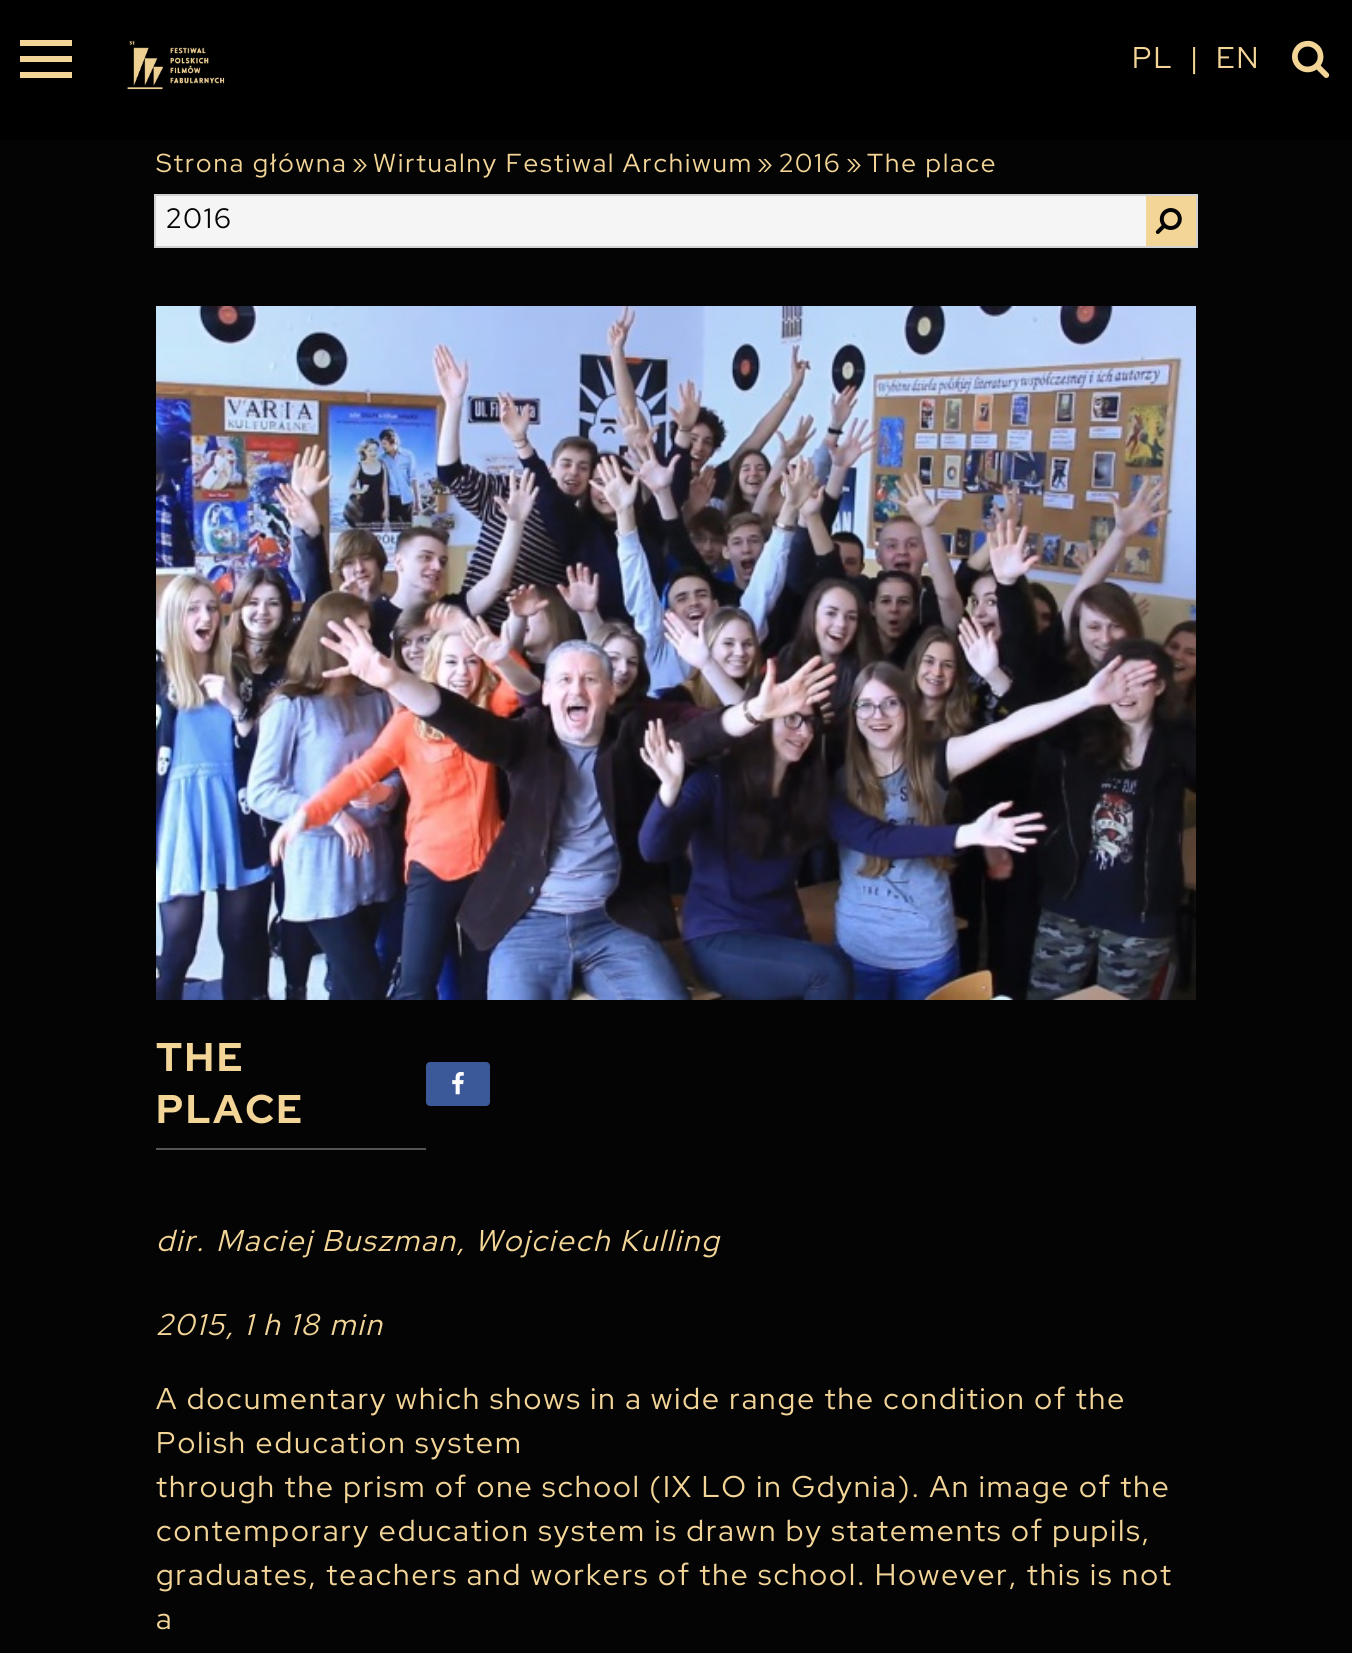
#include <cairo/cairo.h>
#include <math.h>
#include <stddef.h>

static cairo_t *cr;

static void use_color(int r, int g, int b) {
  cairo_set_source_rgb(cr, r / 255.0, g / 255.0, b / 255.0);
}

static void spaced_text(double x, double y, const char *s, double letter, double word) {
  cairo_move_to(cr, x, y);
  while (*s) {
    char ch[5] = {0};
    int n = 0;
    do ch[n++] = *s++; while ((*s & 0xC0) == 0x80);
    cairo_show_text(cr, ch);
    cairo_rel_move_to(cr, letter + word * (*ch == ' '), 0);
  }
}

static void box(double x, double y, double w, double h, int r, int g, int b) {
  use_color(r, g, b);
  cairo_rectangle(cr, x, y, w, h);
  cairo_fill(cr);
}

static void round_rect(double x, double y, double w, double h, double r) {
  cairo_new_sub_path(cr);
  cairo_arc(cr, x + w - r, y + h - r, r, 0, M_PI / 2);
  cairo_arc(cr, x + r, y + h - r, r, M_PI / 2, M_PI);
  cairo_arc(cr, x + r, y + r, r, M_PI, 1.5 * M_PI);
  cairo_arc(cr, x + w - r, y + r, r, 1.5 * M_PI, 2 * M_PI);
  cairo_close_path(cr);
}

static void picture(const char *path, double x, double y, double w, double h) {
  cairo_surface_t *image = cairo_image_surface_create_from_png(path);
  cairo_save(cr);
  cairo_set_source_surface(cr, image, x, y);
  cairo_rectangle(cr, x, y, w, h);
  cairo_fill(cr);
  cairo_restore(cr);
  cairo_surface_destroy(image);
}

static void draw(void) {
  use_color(4, 4, 4);
  cairo_paint(cr);
  box(0, 0, 1352, 140, 0, 0, 0);
  box(20, 72, 52, 6, 243, 213, 151);
  box(20, 40, 52, 6, 243, 213, 151);
  box(20, 56, 52, 6, 243, 213, 151);
  picture("img_01.png", 127, 41, 98, 49);
  picture("img_02.png", 1292, 40, 38, 38);
  cairo_rectangle(cr, 155, 195, 1042, 52);
  use_color(210, 210, 210);
  cairo_stroke(cr);
  box(156, 196, 990, 50, 245, 245, 245);
  box(1146, 196, 50, 50, 243, 213, 151);
  picture("img_03.png", 1155, 208, 27, 26);
  picture("img_04.png", 156, 306, 1040, 694);
  box(156, 1148, 270, 2, 85, 85, 85);
  use_color(59, 89, 152);
  round_rect(426, 1062, 64, 44, 4);
  cairo_fill(cr);
  picture("img_05.png", 452, 1072, 12, 23);
  cairo_select_font_face(cr, "Red Hat Display", CAIRO_FONT_SLANT_NORMAL, CAIRO_FONT_WEIGHT_NORMAL);
  cairo_set_font_size(cr, 30);
  use_color(243, 213, 151);
  spaced_text(1132, 68, "PL", 2, 0);
  spaced_text(1190, 68, "|", 2, 0);
  spaced_text(1216, 68, "EN", 2, 0);
  cairo_set_font_size(cr, 26);
  spaced_text(156, 172, "Strona główna", 2, 0);
  spaced_text(352, 172, "»", 2, 0);
  spaced_text(373, 172, "Wirtualny Festiwal Archiwum", 2, 0);
  spaced_text(757, 172, "»", 2, 0);
  spaced_text(779, 172, "2016", 2, 0);
  spaced_text(846, 172, "»", 2, 0);
  spaced_text(867, 172, "The place", 2, 0);
  cairo_set_font_size(cr, 28);
  use_color(4, 4, 4);
  spaced_text(166, 228, "2016", 2, 0);
  cairo_select_font_face(cr, "Red Hat Display", CAIRO_FONT_SLANT_NORMAL, CAIRO_FONT_WEIGHT_BOLD);
  cairo_set_font_size(cr, 40);
  use_color(243, 213, 151);
  spaced_text(156, 1071, "THE", 2.5, 0);
  spaced_text(156, 1123, "PLACE", 2.5, 0);
  cairo_select_font_face(cr, "Red Hat Display", CAIRO_FONT_SLANT_ITALIC, CAIRO_FONT_WEIGHT_NORMAL);
  cairo_set_font_size(cr, 30);
  spaced_text(156, 1251, "dir.", 2, 0);
  spaced_text(216, 1251, "Maciej Buszman, Wojciech Kulling", 2, 0);
  spaced_text(156, 1335, "2015, 1 h 18 min", 2, 0);
  cairo_select_font_face(cr, "Red Hat Display", CAIRO_FONT_SLANT_NORMAL, CAIRO_FONT_WEIGHT_NORMAL);
  spaced_text(156, 1409, "A documentary which shows in a wide range the condition of the", 2, 0);
  spaced_text(156, 1453, "Polish education system", 2, 0);
  spaced_text(156, 1497, "through the prism of one school (IX LO in Gdynia). An image of the", 2, 0);
  spaced_text(156, 1541, "contemporary education system is drawn by statements of pupils,", 2, 0);
  spaced_text(156, 1585, "graduates, teachers and workers of the school. However, this is not", 2, 0);
  spaced_text(156, 1629, "a", 2, 0);
}

int main(void) {
  cairo_surface_t *surface = cairo_image_surface_create(CAIRO_FORMAT_RGB24, 1352, 1653);
  cr = cairo_create(surface);
  cairo_font_options_t *options = cairo_font_options_create();
  cairo_font_options_set_hint_metrics(options, CAIRO_HINT_METRICS_OFF);
  cairo_font_options_set_hint_style(options, CAIRO_HINT_STYLE_NONE);
  cairo_set_font_options(cr, options);
  cairo_set_miter_limit(cr, 4);
  draw();
  cairo_surface_write_to_png(surface, "out.png");
  cairo_font_options_destroy(options);
  cairo_destroy(cr);
  cairo_surface_destroy(surface);
  return 0;
}
